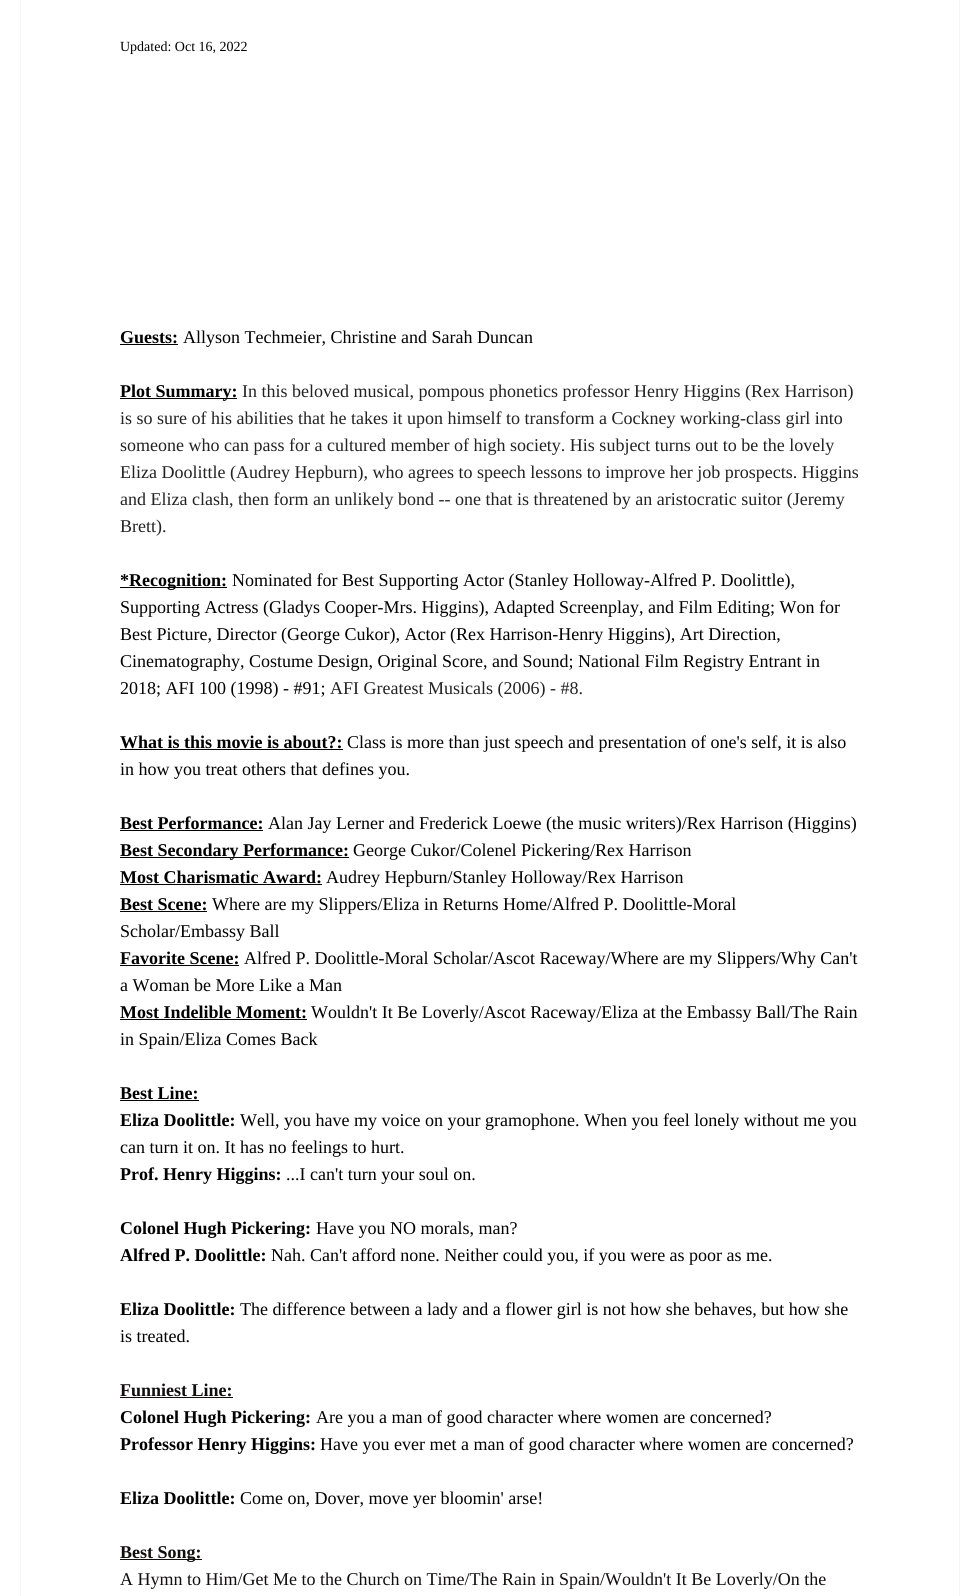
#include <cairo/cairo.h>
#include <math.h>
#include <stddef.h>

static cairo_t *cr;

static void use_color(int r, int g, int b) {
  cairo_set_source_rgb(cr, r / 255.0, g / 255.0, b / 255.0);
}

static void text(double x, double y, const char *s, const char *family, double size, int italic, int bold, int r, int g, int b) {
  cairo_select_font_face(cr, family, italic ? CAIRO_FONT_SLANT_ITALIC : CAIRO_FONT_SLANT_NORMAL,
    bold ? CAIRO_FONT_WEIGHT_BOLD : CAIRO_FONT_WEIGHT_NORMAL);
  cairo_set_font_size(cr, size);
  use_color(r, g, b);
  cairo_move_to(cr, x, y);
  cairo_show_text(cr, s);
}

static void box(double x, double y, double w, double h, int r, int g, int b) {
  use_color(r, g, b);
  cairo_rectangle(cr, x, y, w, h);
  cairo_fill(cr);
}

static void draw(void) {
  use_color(255, 255, 255);
  cairo_paint(cr);
  cairo_rectangle(cr, 20.5, -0.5, 939, 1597);
  use_color(246, 246, 246);
  cairo_set_line_width(cr, 1);
  cairo_stroke(cr);
  box(120, 344, 58, 1, 0, 0, 0);
  box(120, 398, 117, 1, 0, 0, 0);
  box(120, 587, 107, 1, 0, 0, 0);
  box(120, 749, 223, 1, 0, 0, 0);
  box(120, 830, 143, 1, 0, 0, 0);
  box(120, 857, 229, 1, 0, 0, 0);
  box(120, 884, 202, 1, 0, 0, 0);
  box(120, 911, 87, 1, 0, 0, 0);
  box(120, 965, 119, 1, 0, 0, 0);
  box(120, 1019, 187, 1, 0, 0, 0);
  box(120, 1100, 79, 1, 0, 0, 0);
  box(120, 1397, 113, 1, 17, 14, 14);
  box(120, 1559, 82, 1, 17, 14, 14);
  text(120, 51, "Updated: Oct 16, 2022", "Liberation Serif", 14, 0, 0, 0, 0, 0);
  text(120, 343, "Guests:", "Liberation Serif", 18, 0, 1, 0, 0, 0);
  text(183, 343, "Allyson Techmeier, Christine and Sarah Duncan", "Liberation Serif", 18, 0, 0, 0, 0, 0);
  text(120, 397, "Plot Summary:", "Liberation Serif", 18, 0, 1, 0, 0, 0);
  text(242, 397, "In this beloved musical, pompous phonetics professor Henry Higgins (Rex Harrison)", "Liberation Serif", 18, 0, 0, 34, 34, 34);
  text(120, 424, "is so sure of his abilities that he takes it upon himself to transform a Cockney working-class girl into", "Liberation Serif", 18, 0, 0, 34, 34, 34);
  text(120, 451, "someone who can pass for a cultured member of high society. His subject turns out to be the lovely", "Liberation Serif", 18, 0, 0, 34, 34, 34);
  text(120, 478, "Eliza Doolittle (Audrey Hepburn), who agrees to speech lessons to improve her job prospects. Higgins", "Liberation Serif", 18, 0, 0, 34, 34, 34);
  text(120, 505, "and Eliza clash, then form an unlikely bond -- one that is threatened by an aristocratic suitor (Jeremy", "Liberation Serif", 18, 0, 0, 34, 34, 34);
  text(120, 532, "Brett).", "Liberation Serif", 18, 0, 0, 34, 34, 34);
  text(120, 586, "*Recognition:", "Liberation Serif", 18, 0, 1, 0, 0, 0);
  text(232, 586, "Nominated for Best Supporting Actor (Stanley Holloway-Alfred P. Doolittle),", "Liberation Serif", 18, 0, 0, 0, 0, 0);
  text(120, 613, "Supporting Actress (Gladys Cooper-Mrs. Higgins), Adapted Screenplay, and Film Editing; Won for", "Liberation Serif", 18, 0, 0, 0, 0, 0);
  text(120, 640, "Best Picture, Director (George Cukor), Actor (Rex Harrison-Henry Higgins), Art Direction,", "Liberation Serif", 18, 0, 0, 0, 0, 0);
  text(120, 667, "Cinematography, Costume Design, Original Score, and Sound; National Film Registry Entrant in", "Liberation Serif", 18, 0, 0, 0, 0, 0);
  text(120, 694, "2018; AFI 100 (1998) - #91;", "Liberation Serif", 18, 0, 0, 0, 0, 0);
  text(330, 694, "AFI Greatest Musicals (2006) - #8.", "Liberation Serif", 18, 0, 0, 34, 34, 34);
  text(120, 748, "What is this movie is about?:", "Liberation Serif", 18, 0, 1, 0, 0, 0);
  text(347, 748, "Class is more than just speech and presentation of one's self, it is also", "Liberation Serif", 18, 0, 0, 0, 0, 0);
  text(120, 775, "in how you treat others that defines you.", "Liberation Serif", 18, 0, 0, 0, 0, 0);
  text(120, 829, "Best Performance:", "Liberation Serif", 18, 0, 1, 0, 0, 0);
  text(268, 829, "Alan Jay Lerner and Frederick Loewe (the music writers)/Rex Harrison (Higgins)", "Liberation Serif", 18, 0, 0, 0, 0, 0);
  text(120, 856, "Best Secondary Performance:", "Liberation Serif", 18, 0, 1, 0, 0, 0);
  text(353, 856, "George Cukor/Colenel Pickering/Rex Harrison", "Liberation Serif", 18, 0, 0, 0, 0, 0);
  text(120, 883, "Most Charismatic Award:", "Liberation Serif", 18, 0, 1, 0, 0, 0);
  text(326, 883, "Audrey Hepburn/Stanley Holloway/Rex Harrison", "Liberation Serif", 18, 0, 0, 0, 0, 0);
  text(120, 910, "Best Scene:", "Liberation Serif", 18, 0, 1, 0, 0, 0);
  text(212, 910, "Where are my Slippers/Eliza in Returns Home/Alfred P. Doolittle-Moral", "Liberation Serif", 18, 0, 0, 0, 0, 0);
  text(120, 937, "Scholar/Embassy Ball", "Liberation Serif", 18, 0, 0, 0, 0, 0);
  text(120, 964, "Favorite Scene:", "Liberation Serif", 18, 0, 1, 0, 0, 0);
  text(244, 964, "Alfred P. Doolittle-Moral Scholar/Ascot Raceway/Where are my Slippers/Why Can't", "Liberation Serif", 18, 0, 0, 0, 0, 0);
  text(120, 991, "a Woman be More Like a Man", "Liberation Serif", 18, 0, 0, 0, 0, 0);
  text(120, 1018, "Most Indelible Moment:", "Liberation Serif", 18, 0, 1, 0, 0, 0);
  text(311, 1018, "Wouldn't It Be Loverly/Ascot Raceway/Eliza at the Embassy Ball/The Rain", "Liberation Serif", 18, 0, 0, 0, 0, 0);
  text(120, 1045, "in Spain/Eliza Comes Back", "Liberation Serif", 18, 0, 0, 0, 0, 0);
  text(120, 1099, "Best Line:", "Liberation Serif", 18, 0, 1, 0, 0, 0);
  text(120, 1126, "Eliza Doolittle:", "Liberation Serif", 18, 0, 1, 0, 0, 0);
  text(240, 1126, "Well, you have my voice on your gramophone. When you feel lonely without me you", "Liberation Serif", 18, 0, 0, 0, 0, 0);
  text(120, 1153, "can turn it on. It has no feelings to hurt.", "Liberation Serif", 18, 0, 0, 0, 0, 0);
  text(120, 1180, "Prof. Henry Higgins:", "Liberation Serif", 18, 0, 1, 0, 0, 0);
  text(286, 1180, "...I can't turn your soul on.", "Liberation Serif", 18, 0, 0, 0, 0, 0);
  text(120, 1234, "Colonel Hugh Pickering:", "Liberation Serif", 18, 0, 1, 0, 0, 0);
  text(316, 1234, "Have you NO morals, man?", "Liberation Serif", 18, 0, 0, 0, 0, 0);
  text(120, 1261, "Alfred P. Doolittle:", "Liberation Serif", 18, 0, 1, 0, 0, 0);
  text(271, 1261, "Nah. Can't afford none. Neither could you, if you were as poor as me.", "Liberation Serif", 18, 0, 0, 0, 0, 0);
  text(120, 1315, "Eliza Doolittle:", "Liberation Serif", 18, 0, 1, 0, 0, 0);
  text(240, 1315, "The difference between a lady and a flower girl is not how she behaves, but how she", "Liberation Serif", 18, 0, 0, 0, 0, 0);
  text(120, 1342, "is treated.", "Liberation Serif", 18, 0, 0, 0, 0, 0);
  text(120, 1396, "Funniest Line:", "Liberation Serif", 18, 0, 1, 17, 14, 14);
  text(120, 1423, "Colonel Hugh Pickering:", "Liberation Serif", 18, 0, 1, 0, 0, 0);
  text(316, 1423, "Are you a man of good character where women are concerned?", "Liberation Serif", 18, 0, 0, 0, 0, 0);
  text(120, 1450, "Professor Henry Higgins:", "Liberation Serif", 18, 0, 1, 0, 0, 0);
  text(320, 1450, "Have you ever met a man of good character where women are concerned?", "Liberation Serif", 18, 0, 0, 0, 0, 0);
  text(120, 1504, "Eliza Doolittle:", "Liberation Serif", 18, 0, 1, 0, 0, 0);
  text(240, 1504, "Come on, Dover, move yer bloomin' arse!", "Liberation Serif", 18, 0, 0, 0, 0, 0);
  text(120, 1558, "Best Song:", "Liberation Serif", 18, 0, 1, 17, 14, 14);
  text(120, 1585, "A Hymn to Him/Get Me to the Church on Time/The Rain in Spain/Wouldn't It Be Loverly/On the", "Liberation Serif", 18, 0, 0, 17, 14, 14);
}

int main(void) {
  cairo_surface_t *surface = cairo_image_surface_create(CAIRO_FORMAT_RGB24, 970, 1596);
  cr = cairo_create(surface);
  cairo_font_options_t *options = cairo_font_options_create();
  cairo_font_options_set_hint_metrics(options, CAIRO_HINT_METRICS_OFF);
  cairo_font_options_set_hint_style(options, CAIRO_HINT_STYLE_NONE);
  cairo_set_font_options(cr, options);
  cairo_set_miter_limit(cr, 4);
  draw();
  cairo_surface_write_to_png(surface, "out.png");
  cairo_font_options_destroy(options);
  cairo_destroy(cr);
  cairo_surface_destroy(surface);
  return 0;
}
